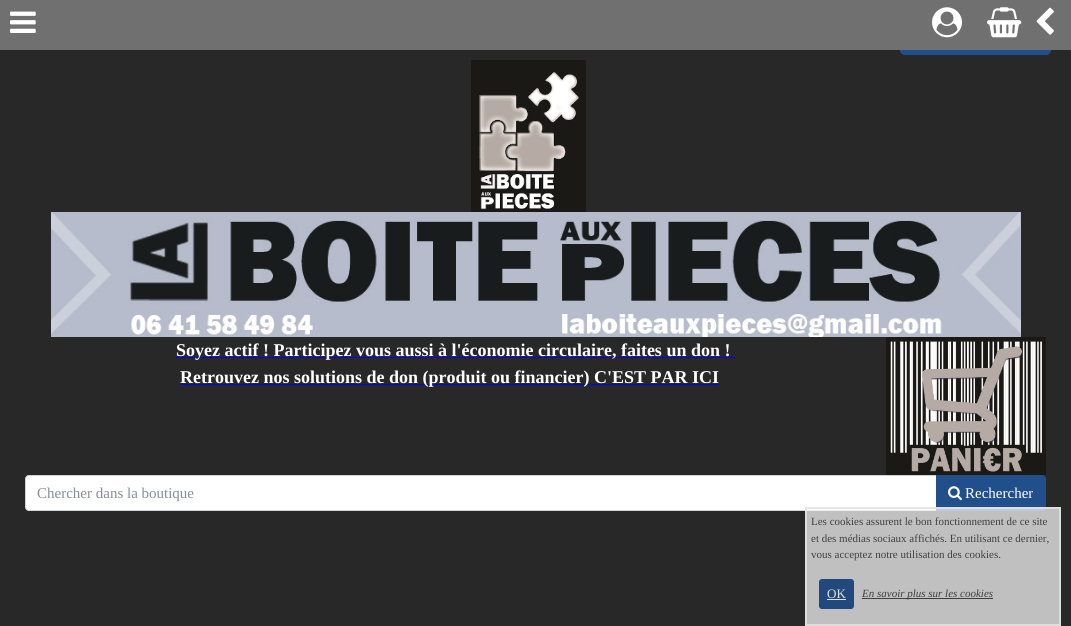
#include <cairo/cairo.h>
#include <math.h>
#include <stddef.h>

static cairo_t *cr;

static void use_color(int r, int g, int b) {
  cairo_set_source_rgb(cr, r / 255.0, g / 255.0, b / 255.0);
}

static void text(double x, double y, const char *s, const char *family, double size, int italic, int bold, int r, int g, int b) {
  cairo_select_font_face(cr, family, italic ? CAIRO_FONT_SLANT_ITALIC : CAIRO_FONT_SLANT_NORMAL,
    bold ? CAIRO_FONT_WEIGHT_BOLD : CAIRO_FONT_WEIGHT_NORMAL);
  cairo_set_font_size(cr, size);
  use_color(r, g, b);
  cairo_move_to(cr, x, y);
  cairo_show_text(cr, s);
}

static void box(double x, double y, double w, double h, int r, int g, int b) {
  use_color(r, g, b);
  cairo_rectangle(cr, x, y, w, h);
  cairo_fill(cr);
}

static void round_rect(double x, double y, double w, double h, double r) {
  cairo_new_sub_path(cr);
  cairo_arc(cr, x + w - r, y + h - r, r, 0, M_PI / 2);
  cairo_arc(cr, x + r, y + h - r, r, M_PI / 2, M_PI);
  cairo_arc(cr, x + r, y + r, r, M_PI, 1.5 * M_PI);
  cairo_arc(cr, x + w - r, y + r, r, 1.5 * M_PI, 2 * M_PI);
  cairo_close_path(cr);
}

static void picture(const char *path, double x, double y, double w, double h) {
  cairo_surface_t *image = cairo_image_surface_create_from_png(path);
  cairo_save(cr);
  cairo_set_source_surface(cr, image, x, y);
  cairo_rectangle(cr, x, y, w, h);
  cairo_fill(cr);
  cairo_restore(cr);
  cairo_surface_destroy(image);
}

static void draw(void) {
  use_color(41, 40, 40);
  cairo_paint(cr);
  use_color(32, 79, 140);
  round_rect(900.5, 10.5, 150, 44, 4.5);
  cairo_fill_preserve(cr);
  cairo_set_line_width(cr, 1);
  cairo_stroke(cr);
  box(0, 0, 1071, 50, 112, 112, 112);
  picture("img_01.png", 10, 11, 26, 22);
  picture("img_02.png", 932, 7, 30, 31);
  picture("img_03.png", 987, 7, 35, 31);
  picture("img_04.png", 1036, 7, 18, 28);
  picture("img_05.png", 471, 60, 115, 152);
  picture("img_06.png", 51, 212, 970, 125);
  picture("img_07.png", 886, 337, 160, 138);
  box(176, 357, 559, 1, 0, 0, 255);
  box(180, 384, 539, 1, 0, 0, 255);
  use_color(255, 255, 255);
  cairo_new_path(cr);
  cairo_move_to(cr, 29, 475.5);
  cairo_line_to(cr, 936.5, 475.5);
  cairo_line_to(cr, 936.5, 510.5);
  cairo_line_to(cr, 29, 510.5);
  cairo_curve_to(cr, 27, 510.5, 25.5, 509, 25.5, 507);
  cairo_line_to(cr, 25.5, 479);
  cairo_curve_to(cr, 25.5, 477, 27, 475.5, 29, 475.5);
  cairo_close_path(cr);
  cairo_fill_preserve(cr);
  use_color(206, 212, 218);
  cairo_stroke(cr);
  use_color(32, 79, 140);
  cairo_new_path(cr);
  cairo_move_to(cr, 936.5, 475.5);
  cairo_line_to(cr, 1042, 475.5);
  cairo_curve_to(cr, 1044, 475.5, 1045.5, 477, 1045.5, 479);
  cairo_line_to(cr, 1045.5, 507);
  cairo_curve_to(cr, 1045.5, 509, 1044, 510.5, 1042, 510.5);
  cairo_line_to(cr, 936.5, 510.5);
  cairo_close_path(cr);
  cairo_fill_preserve(cr);
  cairo_stroke(cr);
  picture("img_08.png", 948, 486, 14, 15);
  cairo_set_source_rgba(cr, 0.969, 0.969, 0.969, 0.73);
  cairo_rectangle(cr, 805, 507, 256, 119);
  cairo_fill(cr);
  cairo_rectangle(cr, 806, 508, 254, 117);
  cairo_set_source_rgba(cr, 0.89, 0.89, 0.89, 0.85);
  cairo_set_line_width(cr, 2);
  cairo_stroke(cr);
  use_color(33, 73, 125);
  round_rect(819.5, 579.5, 34, 29, 2.5);
  cairo_fill_preserve(cr);
  cairo_set_line_width(cr, 1);
  cairo_stroke(cr);
  box(827, 599, 19, 1, 224, 224, 224);
  box(862, 598, 131, 1, 64, 64, 64);
  text(176, 356, "Soyez actif ! Participez vous aussi à l'économie circulaire, faites un don !", "Liberation Serif", 18, 0, 1, 255, 255, 255);
  text(180, 383, "Retrouvez nos solutions de don (produit ou financier) C'EST PAR ICI", "Liberation Serif", 18, 0, 1, 255, 255, 255);
  text(37, 498, "Chercher dans la boutique", "Liberation Serif", 15, 0, 0, 134, 142, 150);
  text(965, 498, "Rechercher", "Liberation Serif", 15, 0, 0, 255, 255, 255);
  text(811, 525, "Les cookies assurent le bon fonctionnement de ce site", "Liberation Serif", 11, 0, 0, 64, 64, 64);
  text(811, 542, "et des médias sociaux affichés. En utilisant ce dernier,", "Liberation Serif", 11, 0, 0, 64, 64, 64);
  text(811, 558, "vous acceptez notre utilisation des cookies.", "Liberation Serif", 11, 0, 0, 64, 64, 64);
  text(827, 598, "OK", "Liberation Serif", 13, 0, 0, 224, 224, 224);
  text(862, 597, "En savoir plus sur les cookies", "Liberation Serif", 11, 1, 0, 64, 64, 64);
}

int main(void) {
  cairo_surface_t *surface = cairo_image_surface_create(CAIRO_FORMAT_RGB24, 1071, 626);
  cr = cairo_create(surface);
  cairo_font_options_t *options = cairo_font_options_create();
  cairo_font_options_set_hint_metrics(options, CAIRO_HINT_METRICS_OFF);
  cairo_font_options_set_hint_style(options, CAIRO_HINT_STYLE_NONE);
  cairo_set_font_options(cr, options);
  cairo_set_miter_limit(cr, 4);
  draw();
  cairo_surface_write_to_png(surface, "out.png");
  cairo_font_options_destroy(options);
  cairo_destroy(cr);
  cairo_surface_destroy(surface);
  return 0;
}
